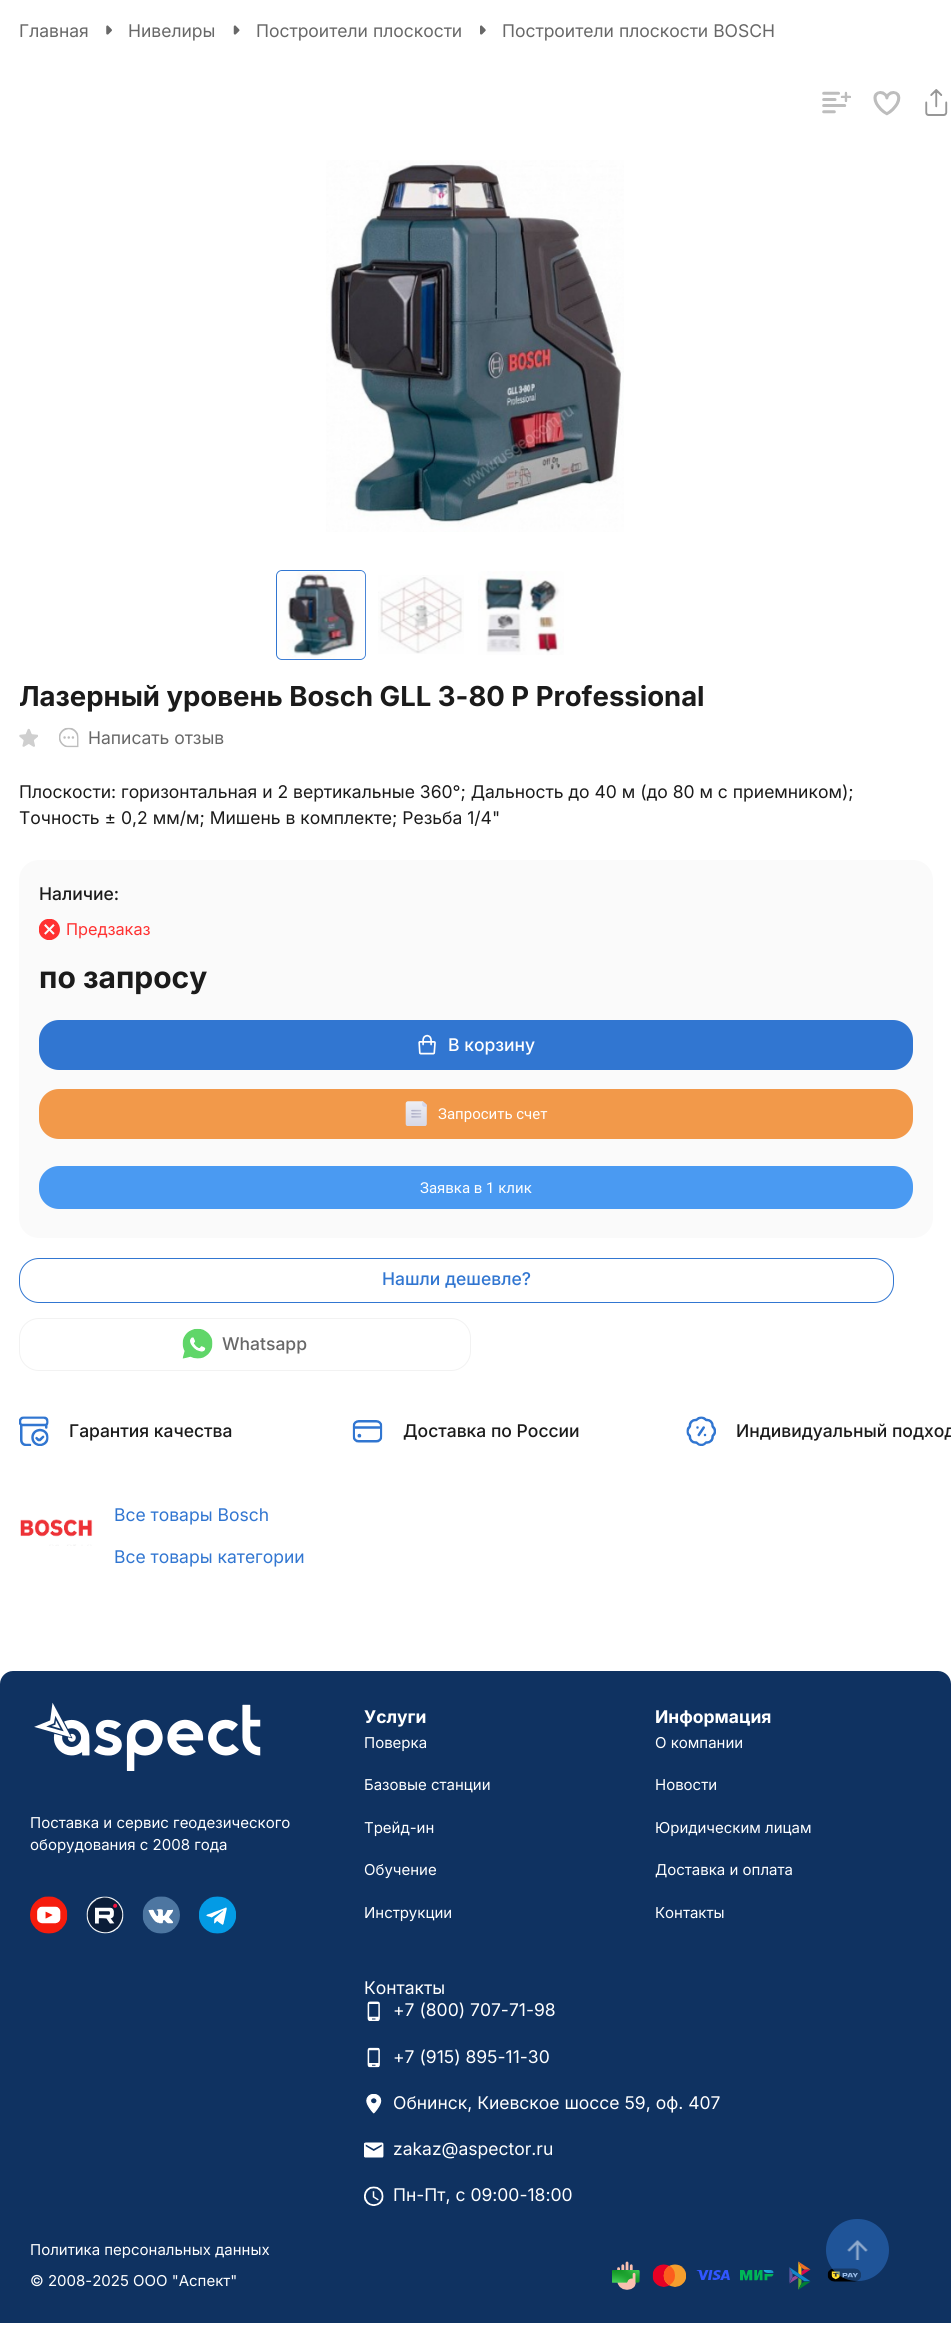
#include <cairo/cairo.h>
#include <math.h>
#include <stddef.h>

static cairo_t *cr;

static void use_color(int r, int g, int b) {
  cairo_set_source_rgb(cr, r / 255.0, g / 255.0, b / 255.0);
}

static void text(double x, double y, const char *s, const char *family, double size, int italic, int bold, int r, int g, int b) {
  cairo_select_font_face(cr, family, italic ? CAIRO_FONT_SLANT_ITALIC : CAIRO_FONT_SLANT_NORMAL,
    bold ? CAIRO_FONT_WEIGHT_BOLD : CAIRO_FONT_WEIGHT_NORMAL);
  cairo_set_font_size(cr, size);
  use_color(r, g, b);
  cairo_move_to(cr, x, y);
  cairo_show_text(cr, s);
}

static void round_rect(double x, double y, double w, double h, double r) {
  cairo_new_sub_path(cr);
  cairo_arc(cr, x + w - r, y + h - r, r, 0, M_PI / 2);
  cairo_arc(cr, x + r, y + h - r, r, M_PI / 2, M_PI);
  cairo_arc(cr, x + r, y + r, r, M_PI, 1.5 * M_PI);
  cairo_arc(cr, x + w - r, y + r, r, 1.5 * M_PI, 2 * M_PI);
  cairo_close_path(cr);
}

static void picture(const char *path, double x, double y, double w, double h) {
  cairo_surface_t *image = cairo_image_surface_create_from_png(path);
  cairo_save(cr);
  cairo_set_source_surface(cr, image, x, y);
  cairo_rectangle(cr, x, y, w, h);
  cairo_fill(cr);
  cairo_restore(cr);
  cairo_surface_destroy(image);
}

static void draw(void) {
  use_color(255, 255, 255);
  cairo_paint(cr);
  picture("img_01.png", 106, 25, 6, 10);
  picture("img_02.png", 233, 25, 7, 10);
  picture("img_03.png", 480, 25, 6, 10);
  picture("img_04.png", 822, 91, 29, 23);
  picture("img_05.png", 873, 91, 28, 25);
  picture("img_06.png", 925, 89, 23, 27);
  picture("img_07.png", 326, 160, 298, 372);
  round_rect(276.5, 570.5, 89, 89, 5.5);
  use_color(49, 118, 209);
  cairo_set_line_width(cr, 1);
  cairo_stroke(cr);
  picture("img_08.png", 277, 571, 89, 89);
  picture("img_09.png", 378, 575, 86, 79);
  picture("img_10.png", 478, 571, 86, 84);
  picture("img_11.png", 19, 728, 19, 19);
  picture("img_12.png", 59, 727, 20, 21);
  use_color(250, 250, 250);
  round_rect(19, 860, 914, 378, 20);
  cairo_fill(cr);
  picture("img_13.png", 39, 919, 21, 21);
  use_color(49, 118, 209);
  round_rect(39, 1020, 874, 50, 20);
  cairo_fill(cr);
  picture("img_14.png", 418, 1034, 18, 21);
  use_color(242, 153, 74);
  round_rect(39, 1089, 874, 50, 20);
  cairo_fill(cr);
  picture("img_15.png", 405, 1101, 22, 25);
  use_color(74, 154, 242);
  round_rect(39, 1166, 874, 43, 20);
  cairo_fill(cr);
  round_rect(19.5, 1258.5, 874, 44, 19.5);
  use_color(49, 118, 209);
  cairo_stroke(cr);
  round_rect(19.5, 1318.5, 451, 52, 19.5);
  use_color(242, 242, 242);
  cairo_stroke(cr);
  picture("img_16.png", 182, 1328, 31, 31);
  picture("img_17.png", 19, 1416, 30, 30);
  picture("img_18.png", 352, 1420, 31, 23);
  picture("img_19.png", 686, 1416, 30, 30);
  picture("img_20.png", 20, 1519, 73, 27);
  use_color(15, 50, 97);
  cairo_new_path(cr);
  cairo_move_to(cr, 13, 1671);
  cairo_line_to(cr, 938, 1671);
  cairo_curve_to(cr, 945, 1671, 951, 1677, 951, 1684);
  cairo_line_to(cr, 951, 2323);
  cairo_line_to(cr, 0, 2323);
  cairo_line_to(cr, 0, 1684);
  cairo_curve_to(cr, 0, 1677, 6, 1671, 13, 1671);
  cairo_close_path(cr);
  cairo_fill(cr);
  picture("img_21.png", 34, 1702, 227, 69);
  picture("img_22.png", 30, 1896, 38, 38);
  picture("img_23.png", 86, 1896, 38, 38);
  picture("img_24.png", 142, 1896, 38, 38);
  picture("img_25.png", 199, 1896, 37, 38);
  picture("img_26.png", 367, 2001, 13, 20);
  picture("img_27.png", 367, 2047, 13, 21);
  picture("img_28.png", 366, 2094, 16, 20);
  picture("img_29.png", 364, 2142, 20, 16);
  picture("img_30.png", 364, 2186, 20, 20);
  picture("img_31.png", 612, 2261, 28, 29);
  picture("img_32.png", 652, 2264, 34, 23);
  picture("img_33.png", 696, 2270, 34, 10);
  picture("img_34.png", 740, 2270, 34, 11);
  picture("img_35.png", 789, 2261, 22, 29);
  picture("img_36.png", 827, 2268, 34, 14);
  cairo_set_source_rgba(cr, 0.192, 0.463, 0.82, 0.5);
  round_rect(826, 2219, 63, 62, 31);
  cairo_fill(cr);
  picture("img_37.png", 847, 2240, 21, 20);
  text(19, 37, "Главная", "Inter", 17.5, 0, 0, 104, 104, 104);
  text(128, 37, "Нивелиры", "Inter", 17.5, 0, 0, 104, 104, 104);
  text(256, 37, "Построители плоскости", "Inter", 17.5, 0, 0, 104, 104, 104);
  text(502, 37, "Построители плоскости BOSCH", "Inter", 17.5, 0, 0, 104, 104, 104);
  text(19, 706, "Лазерный уровень Bosch GLL 3-80 P Professional", "Inter", 27.5, 0, 1, 27, 27, 27);
  text(88, 744, "Написать отзыв", "Inter", 17.5, 0, 0, 104, 104, 104);
  text(19, 798, "Плоскости: горизонтальная и 2 вертикальные 360°; Дальность до 40 м (до 80 м с приемником);", "Inter", 17.5, 0, 0, 27, 27, 27);
  text(19, 824, "Точность ± 0,2 мм/м; Мишень в комплекте; Резьба 1/4\"", "Inter", 17.5, 0, 0, 27, 27, 27);
  text(39, 900, "Наличие:", "Inter Medium", 17.5, 0, 0, 27, 27, 27);
  text(66, 935, "Предзаказ", "Inter", 16.25, 0, 0, 255, 49, 49);
  text(39, 988, "по запросу", "Inter", 30, 0, 1, 27, 27, 27);
  text(448, 1051, "В корзину", "Inter Medium", 17.5, 0, 0, 255, 255, 255);
  text(438, 1119, "Запросить счет", "Roboto", 15, 0, 0, 255, 255, 255);
  text(420, 1193, "Заявка в 1 клик", "Roboto", 15, 0, 0, 255, 255, 255);
  text(382, 1285, "Нашли дешевле?", "Inter Medium", 17.5, 0, 0, 49, 118, 209);
  text(222, 1350, "Whatsapp", "Inter Medium", 17.5, 0, 0, 104, 104, 104);
  text(69, 1437, "Гарантия качества", "Inter Medium", 17.5, 0, 0, 27, 27, 27);
  text(403, 1437, "Доставка по России", "Inter Medium", 17.5, 0, 0, 27, 27, 27);
  text(736, 1437, "Индивидуальный подход", "Inter Medium", 17.5, 0, 0, 27, 27, 27);
  text(114, 1521, "Все товары Bosch", "Inter", 17.5, 0, 0, 49, 118, 209);
  text(114, 1563, "Все товары категории", "Inter", 17.5, 0, 0, 49, 118, 209);
  text(30, 1828, "Поставка и сервис геодезического", "Inter", 15, 0, 0, 255, 255, 255);
  text(30, 1850, "оборудования с 2008 года", "Inter", 15, 0, 0, 255, 255, 255);
  text(364, 1723, "Услуги", "Inter", 17.5, 0, 1, 255, 255, 255);
  text(364, 1748, "Поверка", "Inter", 15, 0, 0, 255, 255, 255);
  text(364, 1790, "Базовые станции", "Inter", 15, 0, 0, 255, 255, 255);
  text(364, 1833, "Трейд-ин", "Inter", 15, 0, 0, 255, 255, 255);
  text(364, 1875, "Обучение", "Inter", 15, 0, 0, 255, 255, 255);
  text(364, 1918, "Инструкции", "Inter", 15, 0, 0, 255, 255, 255);
  text(655, 1723, "Информация", "Inter", 17.5, 0, 1, 255, 255, 255);
  text(655, 1748, "О компании", "Inter", 15, 0, 0, 255, 255, 255);
  text(655, 1790, "Новости", "Inter", 15, 0, 0, 255, 255, 255);
  text(655, 1833, "Юридическим лицам", "Inter", 15, 0, 0, 255, 255, 255);
  text(655, 1875, "Доставка и оплата", "Inter", 15, 0, 0, 255, 255, 255);
  text(655, 1918, "Контакты", "Inter", 15, 0, 0, 255, 255, 255);
  text(364, 1994, "Контакты", "Inter", 17.5, 0, 0, 255, 255, 255);
  text(393, 2016, "+7 (800) 707-71-98", "Inter", 17.5, 0, 0, 255, 255, 255);
  text(393, 2063, "+7 (915) 895-11-30", "Inter", 17.5, 0, 0, 255, 255, 255);
  text(393, 2109, "Обнинск, Киевское шоссе 59, оф. 407", "Inter", 17.5, 0, 0, 255, 255, 255);
  text(393, 2155, "zakaz@aspector.ru", "Inter", 17.5, 0, 0, 255, 255, 255);
  text(393, 2201, "Пн-Пт, с 09:00-18:00", "Inter", 17.5, 0, 0, 255, 255, 255);
  text(30, 2255, "Политика персональных данных", "Inter", 15, 0, 0, 255, 255, 255);
  text(30, 2286, "© 2008-2025 ООО \"Аспект\"", "Inter", 15, 0, 0, 255, 255, 255);
}

int main(void) {
  cairo_surface_t *surface = cairo_image_surface_create(CAIRO_FORMAT_RGB24, 951, 2343);
  cr = cairo_create(surface);
  cairo_font_options_t *options = cairo_font_options_create();
  cairo_font_options_set_hint_metrics(options, CAIRO_HINT_METRICS_OFF);
  cairo_font_options_set_hint_style(options, CAIRO_HINT_STYLE_NONE);
  cairo_set_font_options(cr, options);
  cairo_set_miter_limit(cr, 4);
  draw();
  cairo_surface_write_to_png(surface, "out.png");
  cairo_font_options_destroy(options);
  cairo_destroy(cr);
  cairo_surface_destroy(surface);
  return 0;
}
